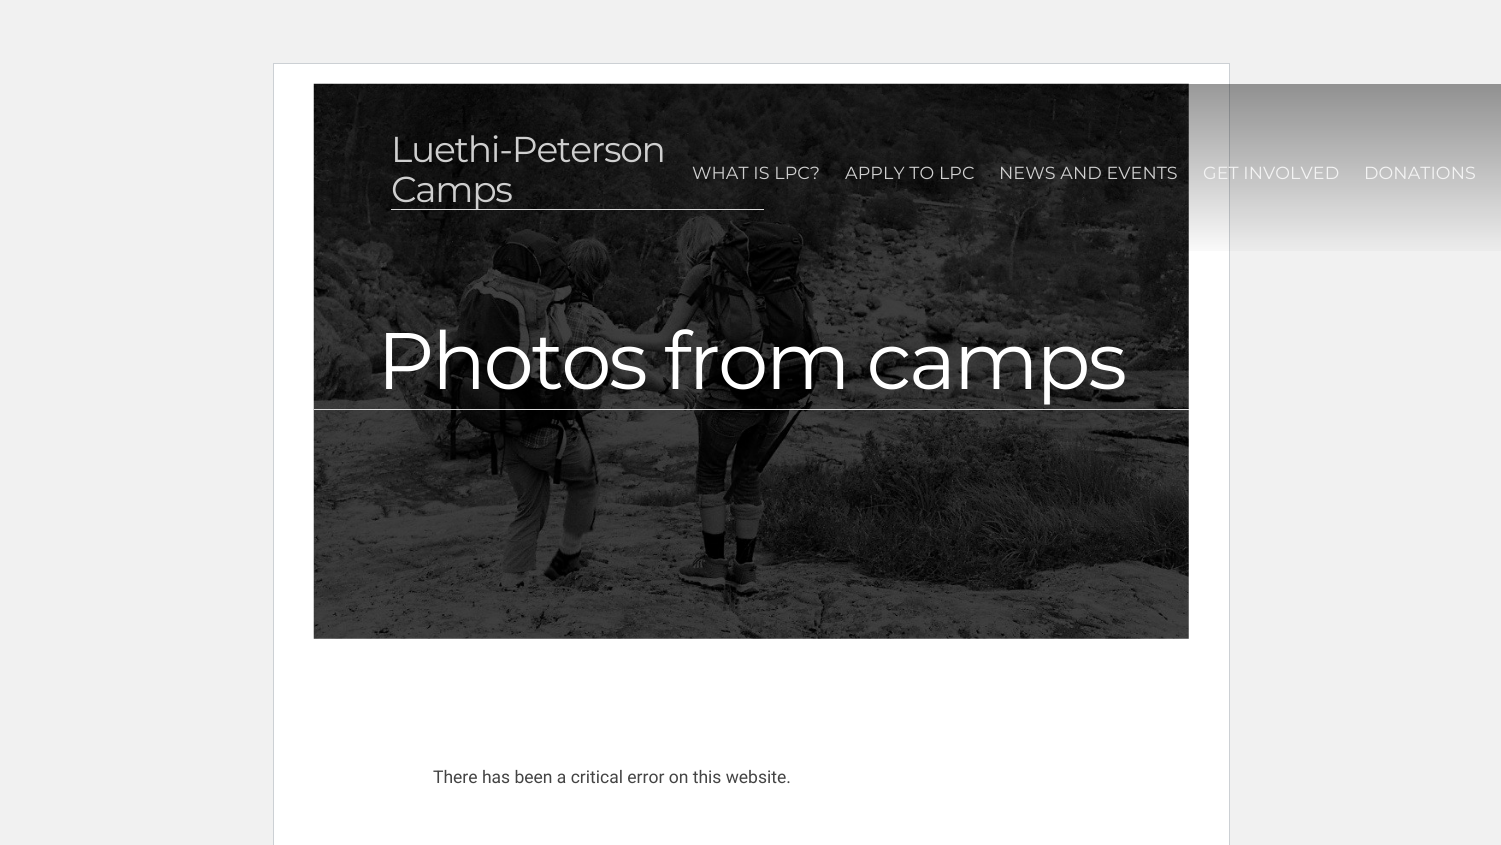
#include <cairo/cairo.h>
#include <math.h>
#include <stddef.h>

static cairo_t *cr;

static void use_color(int r, int g, int b) {
  cairo_set_source_rgb(cr, r / 255.0, g / 255.0, b / 255.0);
}

static void text(double x, double y, const char *s, const char *family, double size, int italic, int bold, int r, int g, int b) {
  cairo_select_font_face(cr, family, italic ? CAIRO_FONT_SLANT_ITALIC : CAIRO_FONT_SLANT_NORMAL,
    bold ? CAIRO_FONT_WEIGHT_BOLD : CAIRO_FONT_WEIGHT_NORMAL);
  cairo_set_font_size(cr, size);
  use_color(r, g, b);
  cairo_move_to(cr, x, y);
  cairo_show_text(cr, s);
}

static void spaced_text(double x, double y, const char *s, double letter, double word) {
  cairo_move_to(cr, x, y);
  while (*s) {
    char ch[5] = {0};
    int n = 0;
    do ch[n++] = *s++; while ((*s & 0xC0) == 0x80);
    cairo_show_text(cr, ch);
    cairo_rel_move_to(cr, letter + word * (*ch == ' '), 0);
  }
}

static void box(double x, double y, double w, double h, int r, int g, int b) {
  use_color(r, g, b);
  cairo_rectangle(cr, x, y, w, h);
  cairo_fill(cr);
}

static void picture(const char *path, double x, double y, double w, double h) {
  cairo_surface_t *image = cairo_image_surface_create_from_png(path);
  cairo_save(cr);
  cairo_set_source_surface(cr, image, x, y);
  cairo_rectangle(cr, x, y, w, h);
  cairo_fill(cr);
  cairo_restore(cr);
  cairo_surface_destroy(image);
}

static void draw(void) {
  cairo_pattern_t *gradient;
  use_color(241, 241, 241);
  cairo_paint(cr);
  use_color(255, 255, 255);
  cairo_rectangle(cr, 273.5, 63.5, 956, 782);
  cairo_fill_preserve(cr);
  use_color(204, 208, 212);
  cairo_set_line_width(cr, 1);
  cairo_stroke(cr);
  picture("img_02.png", 313, 83, 876, 556);
  gradient = cairo_pattern_create_linear(1064, 84, 1064, 260);
  cairo_pattern_add_color_stop_rgba(gradient, 0, 0, 0, 0, 0.4);
  cairo_pattern_add_color_stop_rgba(gradient, 1, 0, 0, 0, 0);
  cairo_set_source(cr, gradient);
  cairo_pattern_destroy(gradient);
  cairo_rectangle(cr, 314, 84, 1187, 167);
  cairo_fill(cr);
  picture("img_01.png", 331, 142, 54, 61);
  box(391, 209, 373, 1, 218, 218, 218);
  box(314, 409, 875, 1, 218, 218, 218);
  cairo_select_font_face(cr, "Montserrat", CAIRO_FONT_SLANT_NORMAL, CAIRO_FONT_WEIGHT_NORMAL);
  cairo_set_font_size(cr, 36);
  use_color(207, 207, 207);
  spaced_text(391, 162, "Luethi-Peterson", -1.25, 0);
  spaced_text(391, 202, "Camps", -1.25, 0);
  cairo_set_font_size(cr, 17.5);
  spaced_text(692, 179, "WHAT IS LPC?", 0.1, 0);
  spaced_text(845, 179, "APPLY TO LPC", 0.1, 0);
  spaced_text(999, 179, "NEWS AND EVENTS", 0.1, 0);
  use_color(243, 243, 243);
  spaced_text(1203, 179, "GET INVOLVED", 0.1, 0);
  spaced_text(1364, 179, "DONATIONS", 0.1, 0);
  cairo_set_font_size(cr, 80);
  use_color(255, 255, 255);
  spaced_text(377, 389, "Photos from camps", -2.5, 0);
  text(433, 783, "There has been a critical error on this website.", "Roboto", 17.5, 0, 0, 68, 68, 68);
}

int main(void) {
  cairo_surface_t *surface = cairo_image_surface_create(CAIRO_FORMAT_RGB24, 1501, 845);
  cr = cairo_create(surface);
  cairo_font_options_t *options = cairo_font_options_create();
  cairo_font_options_set_hint_metrics(options, CAIRO_HINT_METRICS_OFF);
  cairo_font_options_set_hint_style(options, CAIRO_HINT_STYLE_NONE);
  cairo_set_font_options(cr, options);
  cairo_set_miter_limit(cr, 4);
  draw();
  cairo_surface_write_to_png(surface, "out.png");
  cairo_font_options_destroy(options);
  cairo_destroy(cr);
  cairo_surface_destroy(surface);
  return 0;
}
